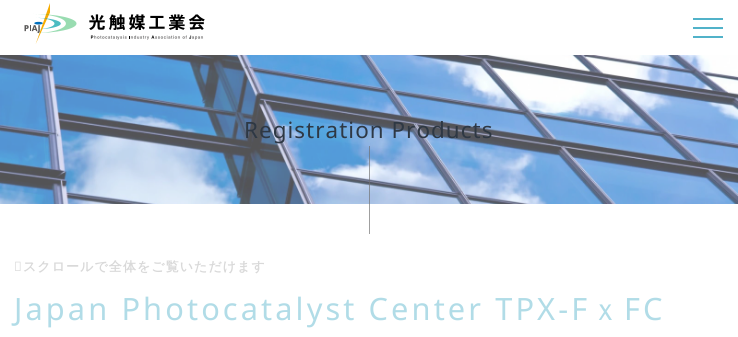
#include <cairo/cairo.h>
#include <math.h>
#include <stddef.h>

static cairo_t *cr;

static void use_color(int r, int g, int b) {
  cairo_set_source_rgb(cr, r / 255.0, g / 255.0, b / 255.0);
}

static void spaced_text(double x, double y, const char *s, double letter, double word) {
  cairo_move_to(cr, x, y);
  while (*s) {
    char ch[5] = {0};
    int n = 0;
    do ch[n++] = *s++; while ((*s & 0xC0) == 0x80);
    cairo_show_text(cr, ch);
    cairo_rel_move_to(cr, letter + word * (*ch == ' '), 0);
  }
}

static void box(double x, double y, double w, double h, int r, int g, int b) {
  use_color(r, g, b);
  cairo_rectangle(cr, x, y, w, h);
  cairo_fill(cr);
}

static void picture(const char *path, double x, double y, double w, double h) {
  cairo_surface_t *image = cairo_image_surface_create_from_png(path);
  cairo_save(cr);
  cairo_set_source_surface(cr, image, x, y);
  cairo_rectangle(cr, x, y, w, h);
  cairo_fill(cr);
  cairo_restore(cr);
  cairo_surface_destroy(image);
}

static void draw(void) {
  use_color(255, 255, 255);
  cairo_paint(cr);
  picture("img_01.png", 24, 3, 181, 41);
  box(693, 18, 30, 2, 81, 178, 201);
  box(693, 27, 30, 2, 81, 178, 201);
  box(693, 36, 30, 2, 81, 178, 201);
  picture("img_02.png", 0, 55, 738, 149);
  cairo_set_source_rgba(cr, 0.439, 0.439, 0.439, 0.67);
  cairo_rectangle(cr, 369, 146, 1, 88);
  cairo_fill(cr);
  picture("img_03.png", 15, 261, 6, 10);
  cairo_select_font_face(cr, "Noto Sans", CAIRO_FONT_SLANT_NORMAL, CAIRO_FONT_WEIGHT_NORMAL);
  cairo_set_font_size(cr, 22.4);
  use_color(46, 56, 68);
  spaced_text(244, 138, "Registration Products", 1.05, 0);
  cairo_select_font_face(cr, "WenQuanYi Zen Hei", CAIRO_FONT_SLANT_NORMAL, CAIRO_FONT_WEIGHT_BOLD);
  cairo_set_font_size(cr, 13);
  use_color(217, 217, 217);
  spaced_text(23, 271, "スクロールで全体をご覧いただけます", 1.05, 0);
  cairo_select_font_face(cr, "Noto Sans", CAIRO_FONT_SLANT_NORMAL, CAIRO_FONT_WEIGHT_NORMAL);
  cairo_set_font_size(cr, 30.75);
  use_color(177, 220, 231);
  spaced_text(14, 320, "Japan Photocatalyst Center TPX-F", 3.1, 0);
  cairo_select_font_face(cr, "WenQuanYi Zen Hei Medium", CAIRO_FONT_SLANT_NORMAL, CAIRO_FONT_WEIGHT_NORMAL);
  spaced_text(590, 320, "ｘ", 3.1, 0);
  cairo_select_font_face(cr, "Noto Sans", CAIRO_FONT_SLANT_NORMAL, CAIRO_FONT_WEIGHT_NORMAL);
  spaced_text(624, 320, "FC", 3.1, 0);
}

int main(void) {
  cairo_surface_t *surface = cairo_image_surface_create(CAIRO_FORMAT_RGB24, 738, 337);
  cr = cairo_create(surface);
  cairo_font_options_t *options = cairo_font_options_create();
  cairo_font_options_set_hint_metrics(options, CAIRO_HINT_METRICS_OFF);
  cairo_font_options_set_hint_style(options, CAIRO_HINT_STYLE_NONE);
  cairo_set_font_options(cr, options);
  cairo_set_miter_limit(cr, 4);
  draw();
  cairo_surface_write_to_png(surface, "out.png");
  cairo_font_options_destroy(options);
  cairo_destroy(cr);
  cairo_surface_destroy(surface);
  return 0;
}
